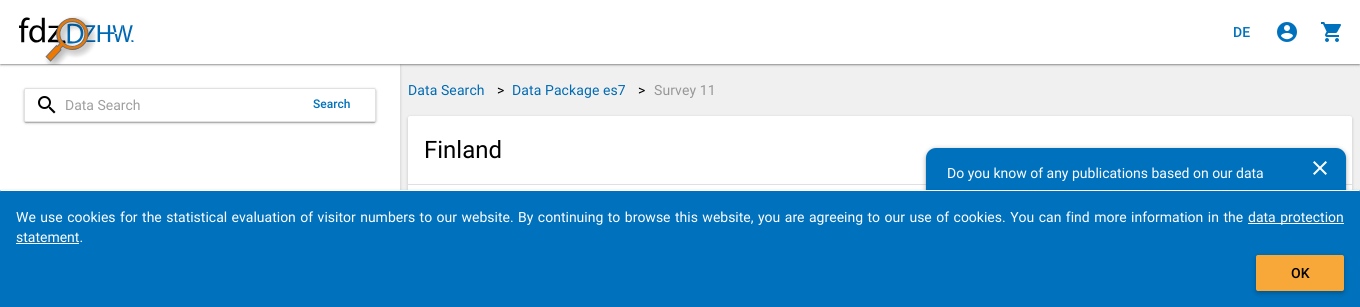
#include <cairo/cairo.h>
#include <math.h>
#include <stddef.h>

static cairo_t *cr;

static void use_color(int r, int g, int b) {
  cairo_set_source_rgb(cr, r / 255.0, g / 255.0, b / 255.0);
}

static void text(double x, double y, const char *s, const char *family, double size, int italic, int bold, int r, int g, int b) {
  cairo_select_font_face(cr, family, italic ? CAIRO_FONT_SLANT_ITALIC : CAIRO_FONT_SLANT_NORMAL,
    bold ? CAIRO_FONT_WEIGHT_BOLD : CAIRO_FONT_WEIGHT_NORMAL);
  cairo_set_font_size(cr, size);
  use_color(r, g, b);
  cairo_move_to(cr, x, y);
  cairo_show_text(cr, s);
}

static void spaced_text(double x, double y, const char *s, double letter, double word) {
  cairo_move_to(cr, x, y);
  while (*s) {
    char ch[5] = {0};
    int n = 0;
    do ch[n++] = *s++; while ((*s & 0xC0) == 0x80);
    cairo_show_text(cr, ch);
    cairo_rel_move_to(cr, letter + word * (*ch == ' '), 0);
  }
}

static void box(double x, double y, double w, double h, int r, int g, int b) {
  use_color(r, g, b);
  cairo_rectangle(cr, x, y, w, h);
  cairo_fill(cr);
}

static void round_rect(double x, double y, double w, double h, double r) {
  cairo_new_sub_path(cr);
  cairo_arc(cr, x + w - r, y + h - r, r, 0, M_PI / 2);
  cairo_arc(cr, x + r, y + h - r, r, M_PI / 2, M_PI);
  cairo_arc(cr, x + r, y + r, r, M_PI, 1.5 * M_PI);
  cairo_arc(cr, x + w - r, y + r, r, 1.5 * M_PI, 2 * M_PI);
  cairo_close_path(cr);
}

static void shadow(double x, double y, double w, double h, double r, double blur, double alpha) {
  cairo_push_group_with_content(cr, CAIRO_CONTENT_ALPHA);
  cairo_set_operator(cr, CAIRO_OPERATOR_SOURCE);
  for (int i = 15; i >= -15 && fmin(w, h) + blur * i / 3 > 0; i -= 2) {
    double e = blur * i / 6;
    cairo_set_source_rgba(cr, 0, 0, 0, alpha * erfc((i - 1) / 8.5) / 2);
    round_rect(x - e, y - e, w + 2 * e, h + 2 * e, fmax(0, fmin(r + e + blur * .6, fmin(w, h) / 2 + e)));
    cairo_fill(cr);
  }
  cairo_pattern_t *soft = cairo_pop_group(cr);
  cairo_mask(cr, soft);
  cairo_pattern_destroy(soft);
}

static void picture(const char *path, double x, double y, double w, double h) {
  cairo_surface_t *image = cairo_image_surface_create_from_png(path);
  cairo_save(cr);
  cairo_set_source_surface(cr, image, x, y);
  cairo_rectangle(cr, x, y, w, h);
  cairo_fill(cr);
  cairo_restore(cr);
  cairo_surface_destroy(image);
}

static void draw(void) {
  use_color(240, 240, 240);
  cairo_paint(cr);
  use_color(0, 0, 0);
  shadow(0, 65, 400, 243, 0, 1.5, 0.2);
  box(0, 64, 400, 128, 255, 255, 255);
  use_color(0, 0, 0);
  shadow(1, 3, 1358, 62, 0, 0.5, 0.12);
  shadow(0, 1, 1360, 64, 0, 0.5, 0.14);
  shadow(0, 1, 1360, 64, 0, 1.5, 0.2);
  box(0, 0, 1360, 64, 255, 255, 255);
  picture("img_01.png", 19, 16, 115, 49);
  picture("img_02.png", 1277, 22, 20, 20);
  picture("img_03.png", 1321, 22, 20, 20);
  cairo_save(cr);
  cairo_rectangle(cr, 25, 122, 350, 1);
  cairo_clip(cr);
  use_color(0, 0, 0);
  shadow(25, 91, 350, 32, 1, 0.5, 0.12);
  cairo_restore(cr);
  cairo_save(cr);
  cairo_set_fill_rule(cr, CAIRO_FILL_RULE_EVEN_ODD);
  cairo_new_path(cr);
  cairo_move_to(cr, 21, 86);
  cairo_line_to(cr, 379, 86);
  cairo_line_to(cr, 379, 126);
  cairo_line_to(cr, 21, 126);
  cairo_close_path(cr);
  cairo_move_to(cr, 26, 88);
  cairo_line_to(cr, 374, 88);
  cairo_curve_to(cr, 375, 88, 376, 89, 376, 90);
  cairo_line_to(cr, 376, 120);
  cairo_curve_to(cr, 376, 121, 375, 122, 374, 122);
  cairo_line_to(cr, 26, 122);
  cairo_curve_to(cr, 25, 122, 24, 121, 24, 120);
  cairo_line_to(cr, 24, 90);
  cairo_curve_to(cr, 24, 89, 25, 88, 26, 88);
  cairo_close_path(cr);
  cairo_clip(cr);
  use_color(0, 0, 0);
  shadow(24, 89, 352, 34, 2, 0.5, 0.14);
  cairo_restore(cr);
  cairo_save(cr);
  cairo_set_fill_rule(cr, CAIRO_FILL_RULE_EVEN_ODD);
  cairo_new_path(cr);
  cairo_move_to(cr, 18, 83);
  cairo_line_to(cr, 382, 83);
  cairo_line_to(cr, 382, 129);
  cairo_line_to(cr, 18, 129);
  cairo_close_path(cr);
  cairo_move_to(cr, 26, 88);
  cairo_line_to(cr, 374, 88);
  cairo_curve_to(cr, 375, 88, 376, 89, 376, 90);
  cairo_line_to(cr, 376, 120);
  cairo_curve_to(cr, 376, 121, 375, 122, 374, 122);
  cairo_line_to(cr, 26, 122);
  cairo_curve_to(cr, 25, 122, 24, 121, 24, 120);
  cairo_line_to(cr, 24, 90);
  cairo_curve_to(cr, 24, 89, 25, 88, 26, 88);
  cairo_close_path(cr);
  cairo_clip(cr);
  use_color(0, 0, 0);
  shadow(24, 89, 352, 34, 2, 1.5, 0.2);
  cairo_restore(cr);
  round_rect(24.5, 88.5, 351, 33, 1.5);
  cairo_set_source_rgba(cr, 0, 0, 0, 0.12);
  cairo_set_line_width(cr, 1);
  cairo_stroke(cr);
  picture("img_04.png", 38, 96, 18, 18);
  use_color(0, 0, 0);
  shadow(408, 117, 944, 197, 2, 1.5, 0.2);
  use_color(255, 255, 255);
  cairo_new_path(cr);
  cairo_move_to(cr, 410, 116);
  cairo_line_to(cr, 1350, 116);
  cairo_curve_to(cr, 1351, 116, 1352, 117, 1352, 118);
  cairo_line_to(cr, 1352, 307);
  cairo_line_to(cr, 408, 307);
  cairo_line_to(cr, 408, 118);
  cairo_curve_to(cr, 408, 117, 409, 116, 410, 116);
  cairo_close_path(cr);
  cairo_fill(cr);
  box(408, 184, 944, 1, 224, 224, 224);
  use_color(0, 0, 0);
  shadow(926, 149, 420, 71, 10, 0.5, 0.2);
  shadow(926, 149, 420, 71, 10, 2.5, 0.3);
  use_color(0, 113, 188);
  round_rect(926, 148, 420, 71, 10);
  cairo_fill(cr);
  picture("img_05.png", 1313, 161, 14, 14);
  use_color(0, 0, 0);
  shadow(0, 191, 1360, 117, 2, 1.5, 0.2);
  use_color(0, 113, 188);
  cairo_new_path(cr);
  cairo_move_to(cr, 2, 190);
  cairo_line_to(cr, 1358, 190);
  cairo_curve_to(cr, 1359, 190, 1360, 191, 1360, 192);
  cairo_line_to(cr, 1360, 307);
  cairo_line_to(cr, 0, 307);
  cairo_line_to(cr, 0, 192);
  cairo_curve_to(cr, 0, 191, 1, 190, 2, 190);
  cairo_close_path(cr);
  cairo_fill(cr);
  box(1, 190, 1358, 1, 255, 255, 255);
  box(1248, 223, 96, 1, 255, 255, 255);
  box(16, 243, 63, 1, 255, 255, 255);
  use_color(0, 0, 0);
  shadow(1256, 257, 88, 36, 2, 2.5, 0.26);
  use_color(247, 168, 57);
  round_rect(1256, 255, 88, 36, 2);
  cairo_fill(cr);
  cairo_select_font_face(cr, "Roboto Medium", CAIRO_FONT_SLANT_NORMAL, CAIRO_FONT_WEIGHT_NORMAL);
  cairo_set_font_size(cr, 14);
  use_color(0, 113, 188);
  spaced_text(1233, 37, "DE", 0.1, 0);
  text(65, 110, "Data Search", "Roboto", 14, 0, 0, 158, 158, 158);
  text(313, 108, "Search", "Roboto Medium", 12, 0, 0, 0, 113, 188);
  cairo_select_font_face(cr, "Roboto", CAIRO_FONT_SLANT_NORMAL, CAIRO_FONT_WEIGHT_NORMAL);
  cairo_set_font_size(cr, 14);
  use_color(0, 106, 178);
  spaced_text(408, 95, "Data Search", 0.1, 0);
  use_color(0, 0, 0);
  spaced_text(497, 95, ">", 0.1, 0);
  use_color(0, 106, 178);
  spaced_text(512, 95, "Data Package es7", 0.1, 0);
  use_color(0, 0, 0);
  spaced_text(638, 95, ">", 0.1, 0);
  use_color(151, 151, 151);
  spaced_text(654, 95, "Survey 11", 0.1, 0);
  text(424, 158, "Finland", "Roboto", 24, 0, 0, 0, 0, 0);
  text(947, 178, "Do you know of any publications based on our data", "Roboto", 14, 0, 0, 255, 255, 255);
  spaced_text(16, 222, "We use cookies for the statistical evaluation of visitor numbers to our website. By continuing to browse this website, you are agreeing to our use of cookies. You can find more information in the", 0, 1);
  spaced_text(1248, 222, "data protection", 0, 1);
  text(16, 242, "statement.", "Roboto", 14, 0, 0, 255, 255, 255);
  cairo_select_font_face(cr, "Roboto Medium", CAIRO_FONT_SLANT_NORMAL, CAIRO_FONT_WEIGHT_NORMAL);
  use_color(0, 0, 0);
  spaced_text(1291, 278, "OK", 0.1, 0);
}

int main(void) {
  cairo_surface_t *surface = cairo_image_surface_create(CAIRO_FORMAT_RGB24, 1360, 307);
  cr = cairo_create(surface);
  cairo_font_options_t *options = cairo_font_options_create();
  cairo_font_options_set_hint_metrics(options, CAIRO_HINT_METRICS_OFF);
  cairo_font_options_set_hint_style(options, CAIRO_HINT_STYLE_NONE);
  cairo_set_font_options(cr, options);
  cairo_set_miter_limit(cr, 4);
  draw();
  cairo_surface_write_to_png(surface, "out.png");
  cairo_font_options_destroy(options);
  cairo_destroy(cr);
  cairo_surface_destroy(surface);
  return 0;
}
